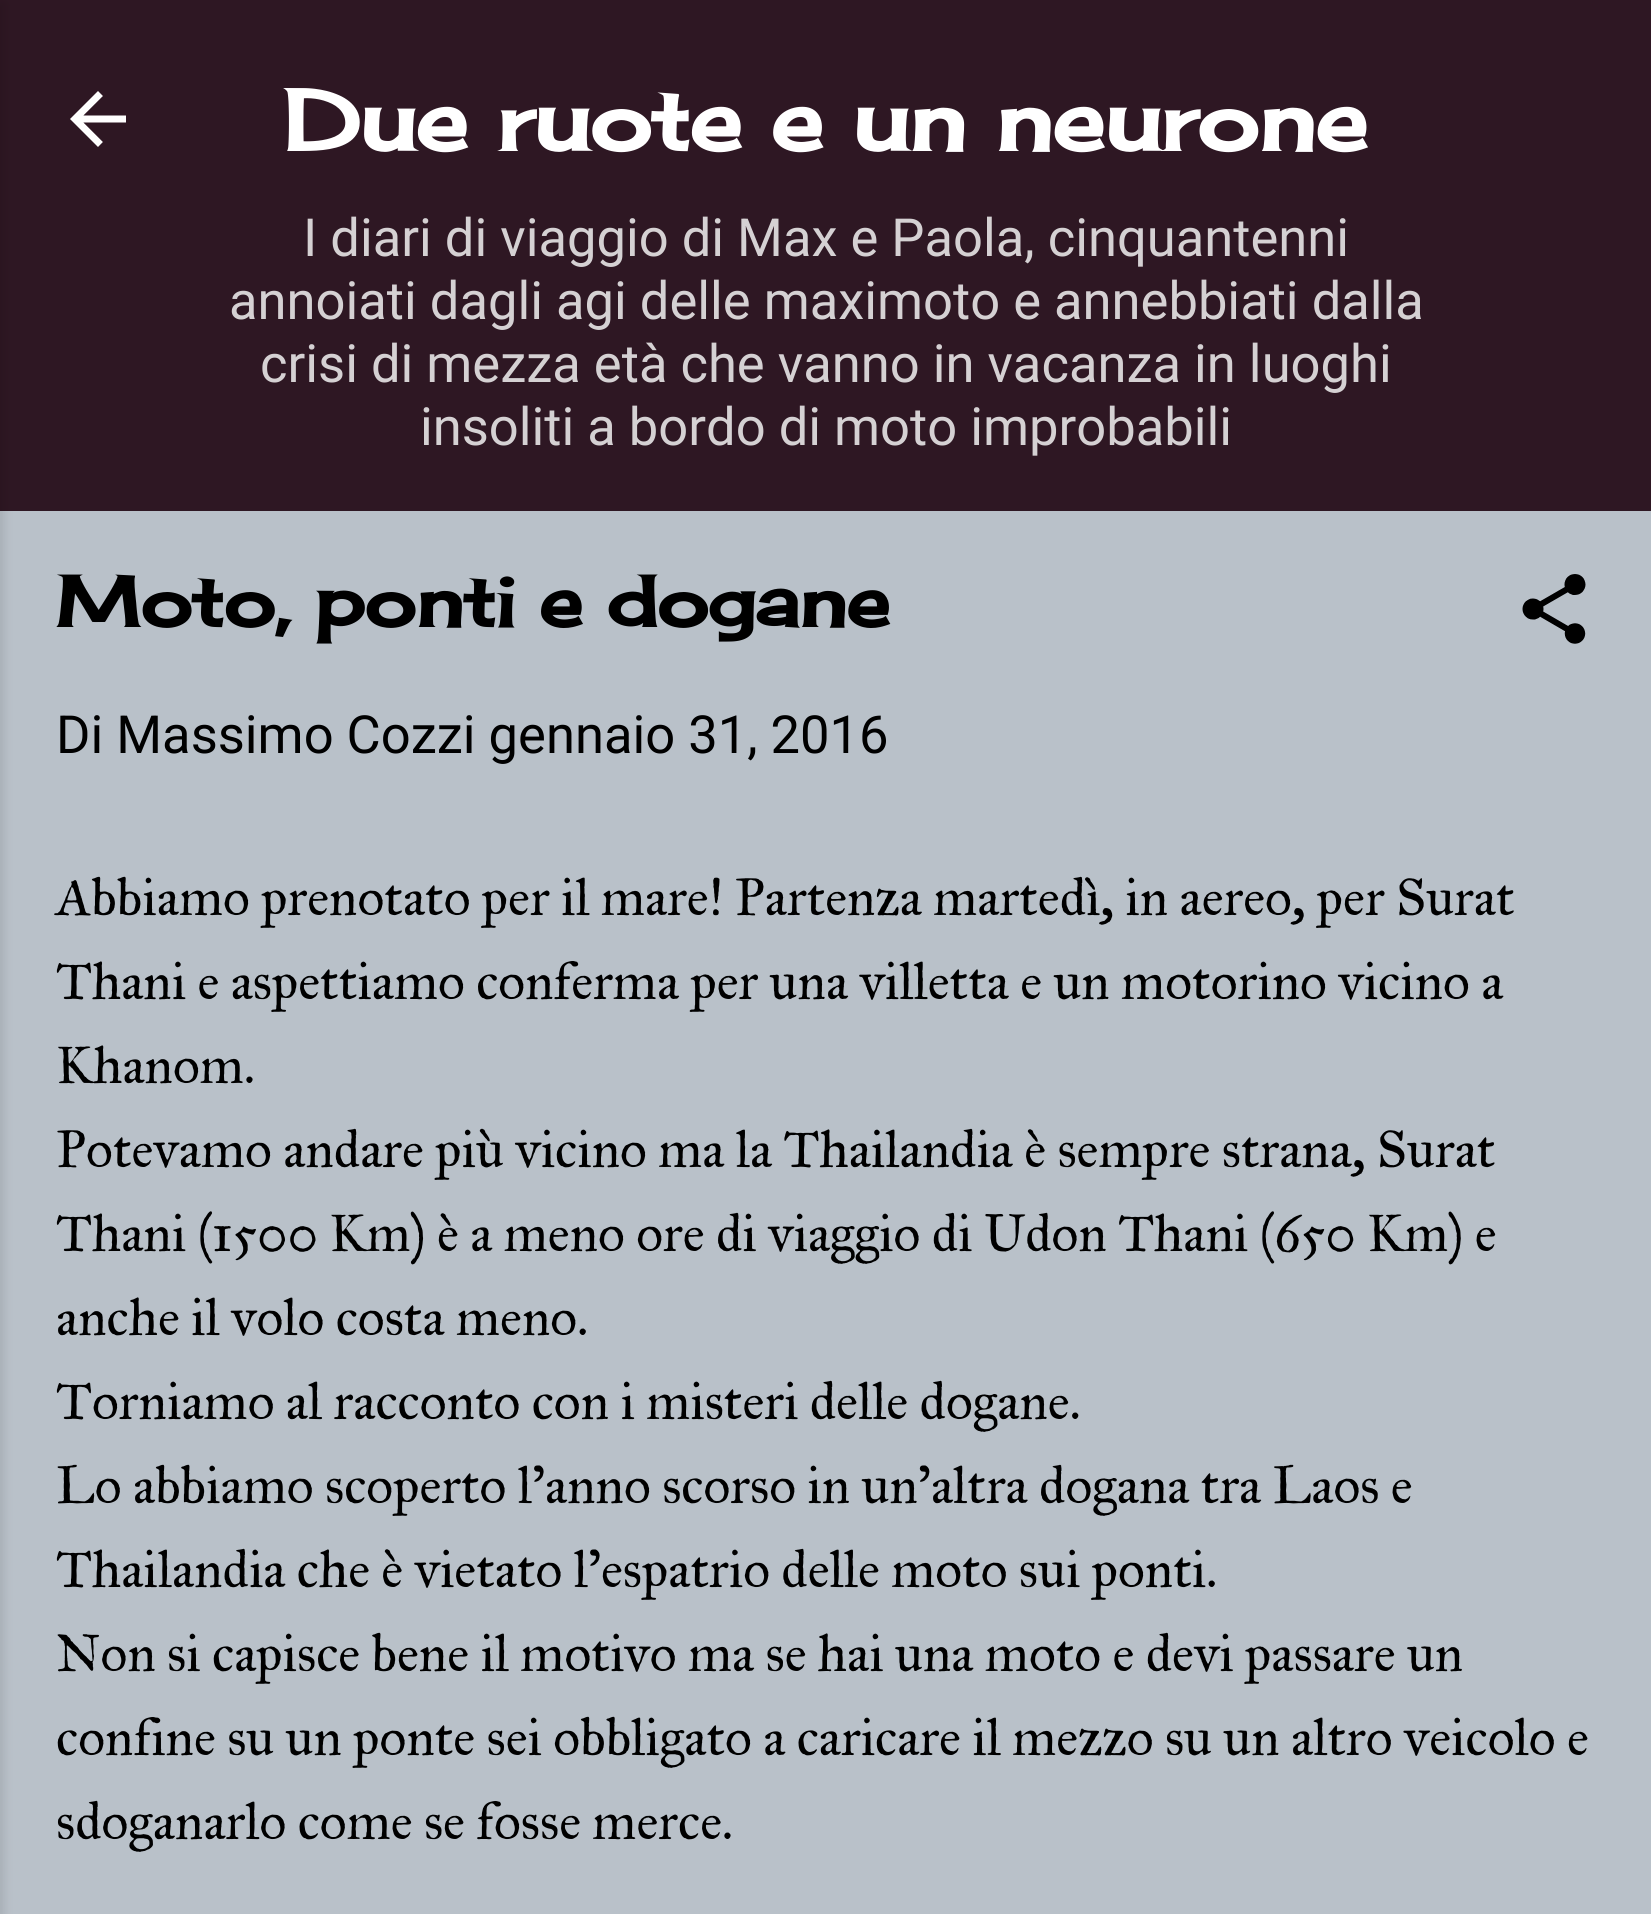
#include <cairo/cairo.h>
#include <math.h>
#include <stddef.h>

static cairo_t *cr;

static void use_color(int r, int g, int b) {
  cairo_set_source_rgb(cr, r / 255.0, g / 255.0, b / 255.0);
}

static void text(double x, double y, const char *s, const char *family, double size, int italic, int bold, int r, int g, int b) {
  cairo_select_font_face(cr, family, italic ? CAIRO_FONT_SLANT_ITALIC : CAIRO_FONT_SLANT_NORMAL,
    bold ? CAIRO_FONT_WEIGHT_BOLD : CAIRO_FONT_WEIGHT_NORMAL);
  cairo_set_font_size(cr, size);
  use_color(r, g, b);
  cairo_move_to(cr, x, y);
  cairo_show_text(cr, s);
}

static void box(double x, double y, double w, double h, int r, int g, int b) {
  use_color(r, g, b);
  cairo_rectangle(cr, x, y, w, h);
  cairo_fill(cr);
}

static void round_rect(double x, double y, double w, double h, double r) {
  cairo_new_sub_path(cr);
  cairo_arc(cr, x + w - r, y + h - r, r, 0, M_PI / 2);
  cairo_arc(cr, x + r, y + h - r, r, M_PI / 2, M_PI);
  cairo_arc(cr, x + r, y + r, r, M_PI, 1.5 * M_PI);
  cairo_arc(cr, x + w - r, y + r, r, 1.5 * M_PI, 2 * M_PI);
  cairo_close_path(cr);
}

static void shadow(double x, double y, double w, double h, double r, double blur, double alpha) {
  cairo_push_group_with_content(cr, CAIRO_CONTENT_ALPHA);
  cairo_set_operator(cr, CAIRO_OPERATOR_SOURCE);
  for (int i = 15; i >= -15 && fmin(w, h) + blur * i / 3 > 0; i -= 2) {
    double e = blur * i / 6;
    cairo_set_source_rgba(cr, 0, 0, 0, alpha * erfc((i - 1) / 8.5) / 2);
    round_rect(x - e, y - e, w + 2 * e, h + 2 * e, fmax(0, fmin(r + e + blur * .6, fmin(w, h) / 2 + e)));
    cairo_fill(cr);
  }
  cairo_pattern_t *soft = cairo_pop_group(cr);
  cairo_mask(cr, soft);
  cairo_pattern_destroy(soft);
}

static void picture(const char *path, double x, double y, double w, double h) {
  cairo_surface_t *image = cairo_image_surface_create_from_png(path);
  cairo_save(cr);
  cairo_set_source_surface(cr, image, x, y);
  cairo_rectangle(cr, x, y, w, h);
  cairo_fill(cr);
  cairo_restore(cr);
  cairo_surface_destroy(image);
}

static void draw(void) {
  use_color(46, 23, 35);
  cairo_paint(cr);
  box(0, 511, 1651, 1403, 185, 193, 201);
  use_color(0, 0, 0);
  shadow(-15, 4, 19, 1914, 0, 5, 0.1);
  picture("img_01.png", 70, 91, 56, 56);
  picture("img_02.png", 1522, 574, 64, 70);
  text(284, 151, "Due ruote e un neurone", "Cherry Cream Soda", 84, 0, 1, 255, 255, 255);
  text(303, 256, "I diari di viaggio di Max e Paola, cinquantenni", "Roboto", 52.5, 0, 0, 213, 209, 211);
  text(229, 319, "annoiati dagli agi delle maximoto e annebbiati dalla", "Roboto", 52.5, 0, 0, 213, 209, 211);
  text(260, 382, "crisi di mezza età che vanno in vacanza in luoghi", "Roboto", 52.5, 0, 0, 213, 209, 211);
  text(420, 445, "insoliti a bordo di moto improbabili", "Roboto", 52.5, 0, 0, 213, 209, 211);
  text(56, 627, "Moto, ponti e dogane", "Cherry Cream Soda", 70, 0, 1, 0, 0, 0);
  text(56, 753, "Di Massimo Cozzi gennaio 31, 2016", "Roboto", 52.5, 0, 0, 0, 0, 0);
  text(56, 915, "Abbiamo prenotato per il mare! Partenza martedì, in aereo, per Surat", "IM FELL Great Primer", 52.5, 0, 0, 0, 0, 0);
  text(56, 999, "Thani e aspettiamo conferma per una villetta e un motorino vicino a", "IM FELL Great Primer", 52.5, 0, 0, 0, 0, 0);
  text(56, 1083, "Khanom.", "IM FELL Great Primer", 52.5, 0, 0, 0, 0, 0);
  text(56, 1167, "Potevamo andare più vicino ma la Thailandia è sempre strana, Surat", "IM FELL Great Primer", 52.5, 0, 0, 0, 0, 0);
  text(56, 1251, "Thani (1500 Km) è a meno ore di viaggio di Udon Thani (650 Km) e", "IM FELL Great Primer", 52.5, 0, 0, 0, 0, 0);
  text(56, 1335, "anche il volo costa meno.", "IM FELL Great Primer", 52.5, 0, 0, 0, 0, 0);
  text(56, 1419, "Torniamo al racconto con i misteri delle dogane.", "IM FELL Great Primer", 52.5, 0, 0, 0, 0, 0);
  text(56, 1503, "Lo abbiamo scoperto l'anno scorso in un'altra dogana tra Laos e", "IM FELL Great Primer", 52.5, 0, 0, 0, 0, 0);
  text(56, 1587, "Thailandia che è vietato l'espatrio delle moto sui ponti.", "IM FELL Great Primer", 52.5, 0, 0, 0, 0, 0);
  text(56, 1671, "Non si capisce bene il motivo ma se hai una moto e devi passare un", "IM FELL Great Primer", 52.5, 0, 0, 0, 0, 0);
  text(56, 1755, "confine su un ponte sei obbligato a caricare il mezzo su un altro veicolo e", "IM FELL Great Primer", 52.5, 0, 0, 0, 0, 0);
  text(56, 1839, "sdoganarlo come se fosse merce.", "IM FELL Great Primer", 52.5, 0, 0, 0, 0, 0);
}

int main(void) {
  cairo_surface_t *surface = cairo_image_surface_create(CAIRO_FORMAT_RGB24, 1651, 1914);
  cr = cairo_create(surface);
  cairo_font_options_t *options = cairo_font_options_create();
  cairo_font_options_set_hint_metrics(options, CAIRO_HINT_METRICS_OFF);
  cairo_font_options_set_hint_style(options, CAIRO_HINT_STYLE_NONE);
  cairo_set_font_options(cr, options);
  cairo_set_miter_limit(cr, 4);
  draw();
  cairo_surface_write_to_png(surface, "out.png");
  cairo_font_options_destroy(options);
  cairo_destroy(cr);
  cairo_surface_destroy(surface);
  return 0;
}
